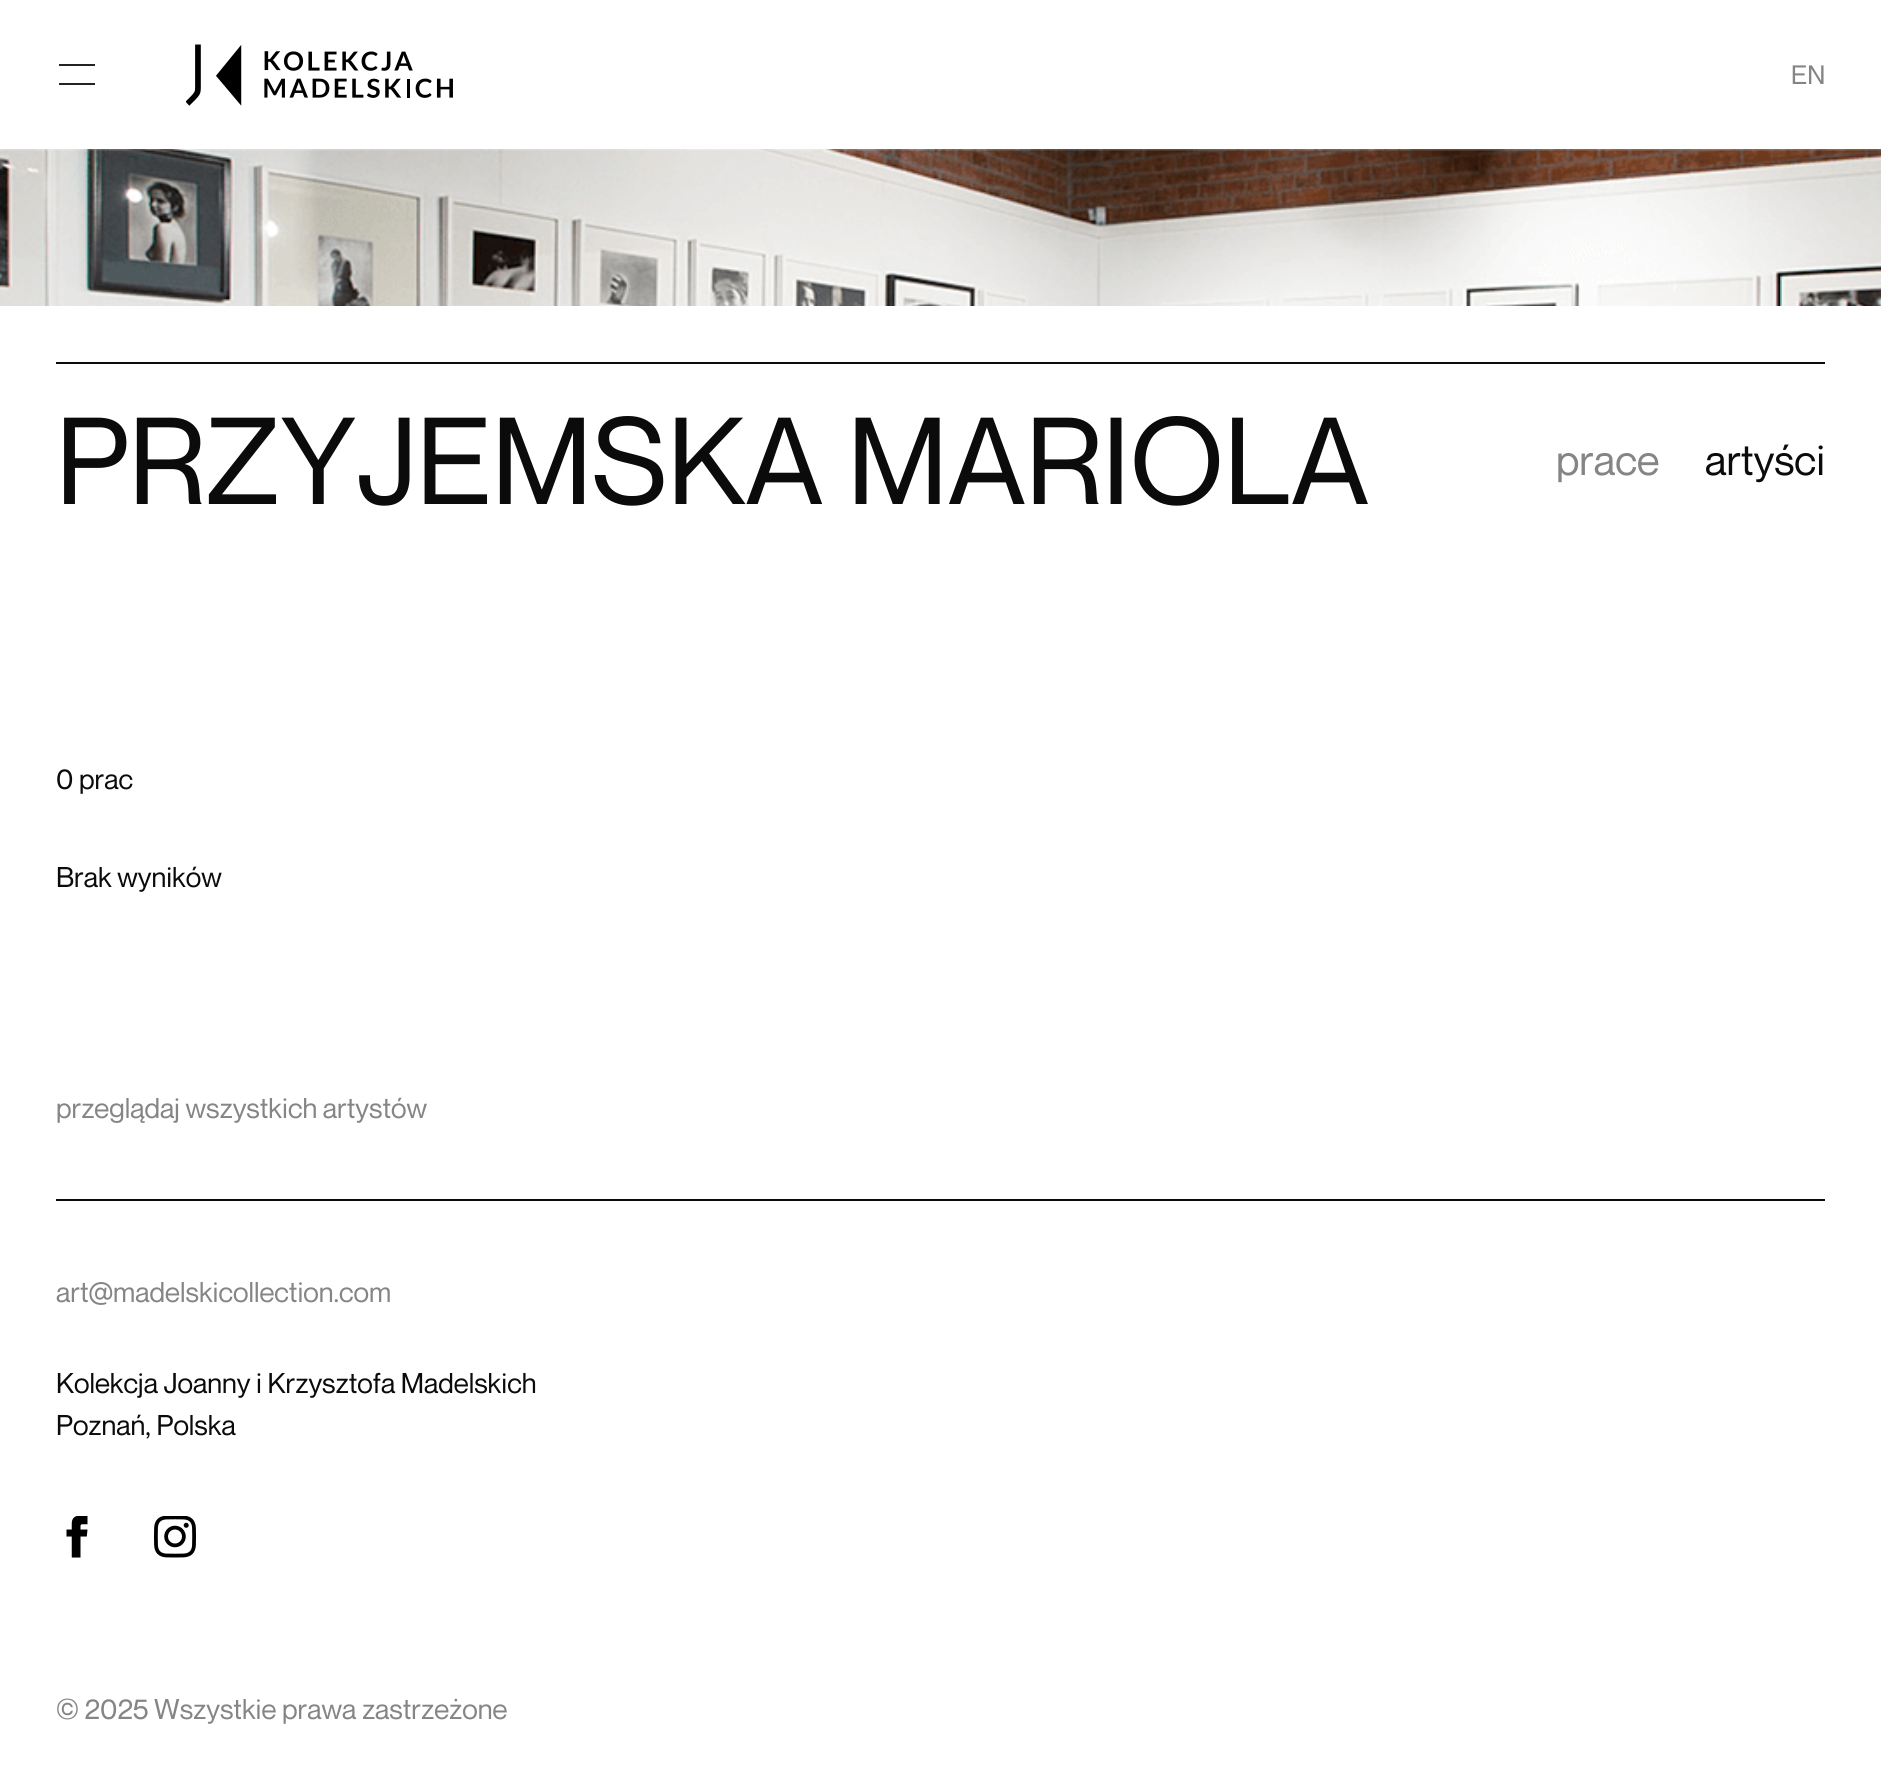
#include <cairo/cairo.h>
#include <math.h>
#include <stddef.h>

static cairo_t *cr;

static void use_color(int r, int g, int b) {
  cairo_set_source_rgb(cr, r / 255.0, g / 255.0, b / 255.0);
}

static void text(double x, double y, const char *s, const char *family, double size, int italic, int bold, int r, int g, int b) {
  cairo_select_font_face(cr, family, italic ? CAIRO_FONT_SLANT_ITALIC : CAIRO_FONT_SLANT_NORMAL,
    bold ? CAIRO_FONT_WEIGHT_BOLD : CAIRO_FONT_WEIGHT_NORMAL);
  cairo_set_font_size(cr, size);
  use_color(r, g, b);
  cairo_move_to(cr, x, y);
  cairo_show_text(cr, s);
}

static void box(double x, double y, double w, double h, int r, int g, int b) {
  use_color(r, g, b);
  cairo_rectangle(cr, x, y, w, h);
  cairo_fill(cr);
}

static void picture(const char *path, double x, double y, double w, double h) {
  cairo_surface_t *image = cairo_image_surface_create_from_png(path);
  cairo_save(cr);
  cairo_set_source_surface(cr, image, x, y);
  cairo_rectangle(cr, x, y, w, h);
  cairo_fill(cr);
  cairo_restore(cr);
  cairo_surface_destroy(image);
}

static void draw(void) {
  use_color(255, 255, 255);
  cairo_paint(cr);
  box(59, 64, 36, 2, 35, 35, 35);
  box(59, 83, 36, 2, 35, 35, 35);
  picture("img_01.png", 186, 44, 267, 62);
  picture("img_02.png", 0, 149, 1881, 157);
  box(56, 362, 1769, 2, 11, 11, 11);
  box(56, 1199, 1769, 2, 11, 11, 11);
  picture("img_03.png", 66, 1516, 22, 42);
  picture("img_04.png", 154, 1516, 42, 42);
  text(1791, 84, "EN", "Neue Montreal", 26, 0, 0, 133, 133, 133);
  text(56, 504, "PRZYJEMSKA MARIOLA", "Neue Montreal", 120.75, 0, 0, 11, 11, 11);
  text(1556, 475, "prace", "Neue Montreal", 42, 0, 0, 133, 133, 133);
  text(1705, 475, "artyści", "Neue Montreal", 42, 0, 0, 11, 11, 11);
  text(56, 789, "0 prac", "Neue Montreal", 28, 0, 0, 11, 11, 11);
  text(56, 887, "Brak wyników", "Neue Montreal", 28, 0, 0, 11, 11, 11);
  text(56, 1118, "przeglądaj wszystkich artystów", "Neue Montreal", 28, 0, 0, 133, 133, 133);
  text(56, 1302, "art@madelskicollection.com", "Neue Montreal", 28, 0, 0, 133, 133, 133);
  text(56, 1393, "Kolekcja Joanny i Krzysztofa Madelskich", "Neue Montreal", 28, 0, 0, 11, 11, 11);
  text(56, 1435, "Poznań, Polska", "Neue Montreal", 28, 0, 0, 11, 11, 11);
  text(56, 1719, "© 2025 Wszystkie prawa zastrzeżone", "Neue Montreal", 28, 0, 0, 133, 133, 133);
}

int main(void) {
  cairo_surface_t *surface = cairo_image_surface_create(CAIRO_FORMAT_RGB24, 1881, 1792);
  cr = cairo_create(surface);
  cairo_font_options_t *options = cairo_font_options_create();
  cairo_font_options_set_hint_metrics(options, CAIRO_HINT_METRICS_OFF);
  cairo_font_options_set_hint_style(options, CAIRO_HINT_STYLE_NONE);
  cairo_set_font_options(cr, options);
  cairo_set_miter_limit(cr, 4);
  draw();
  cairo_surface_write_to_png(surface, "out.png");
  cairo_font_options_destroy(options);
  cairo_destroy(cr);
  cairo_surface_destroy(surface);
  return 0;
}
